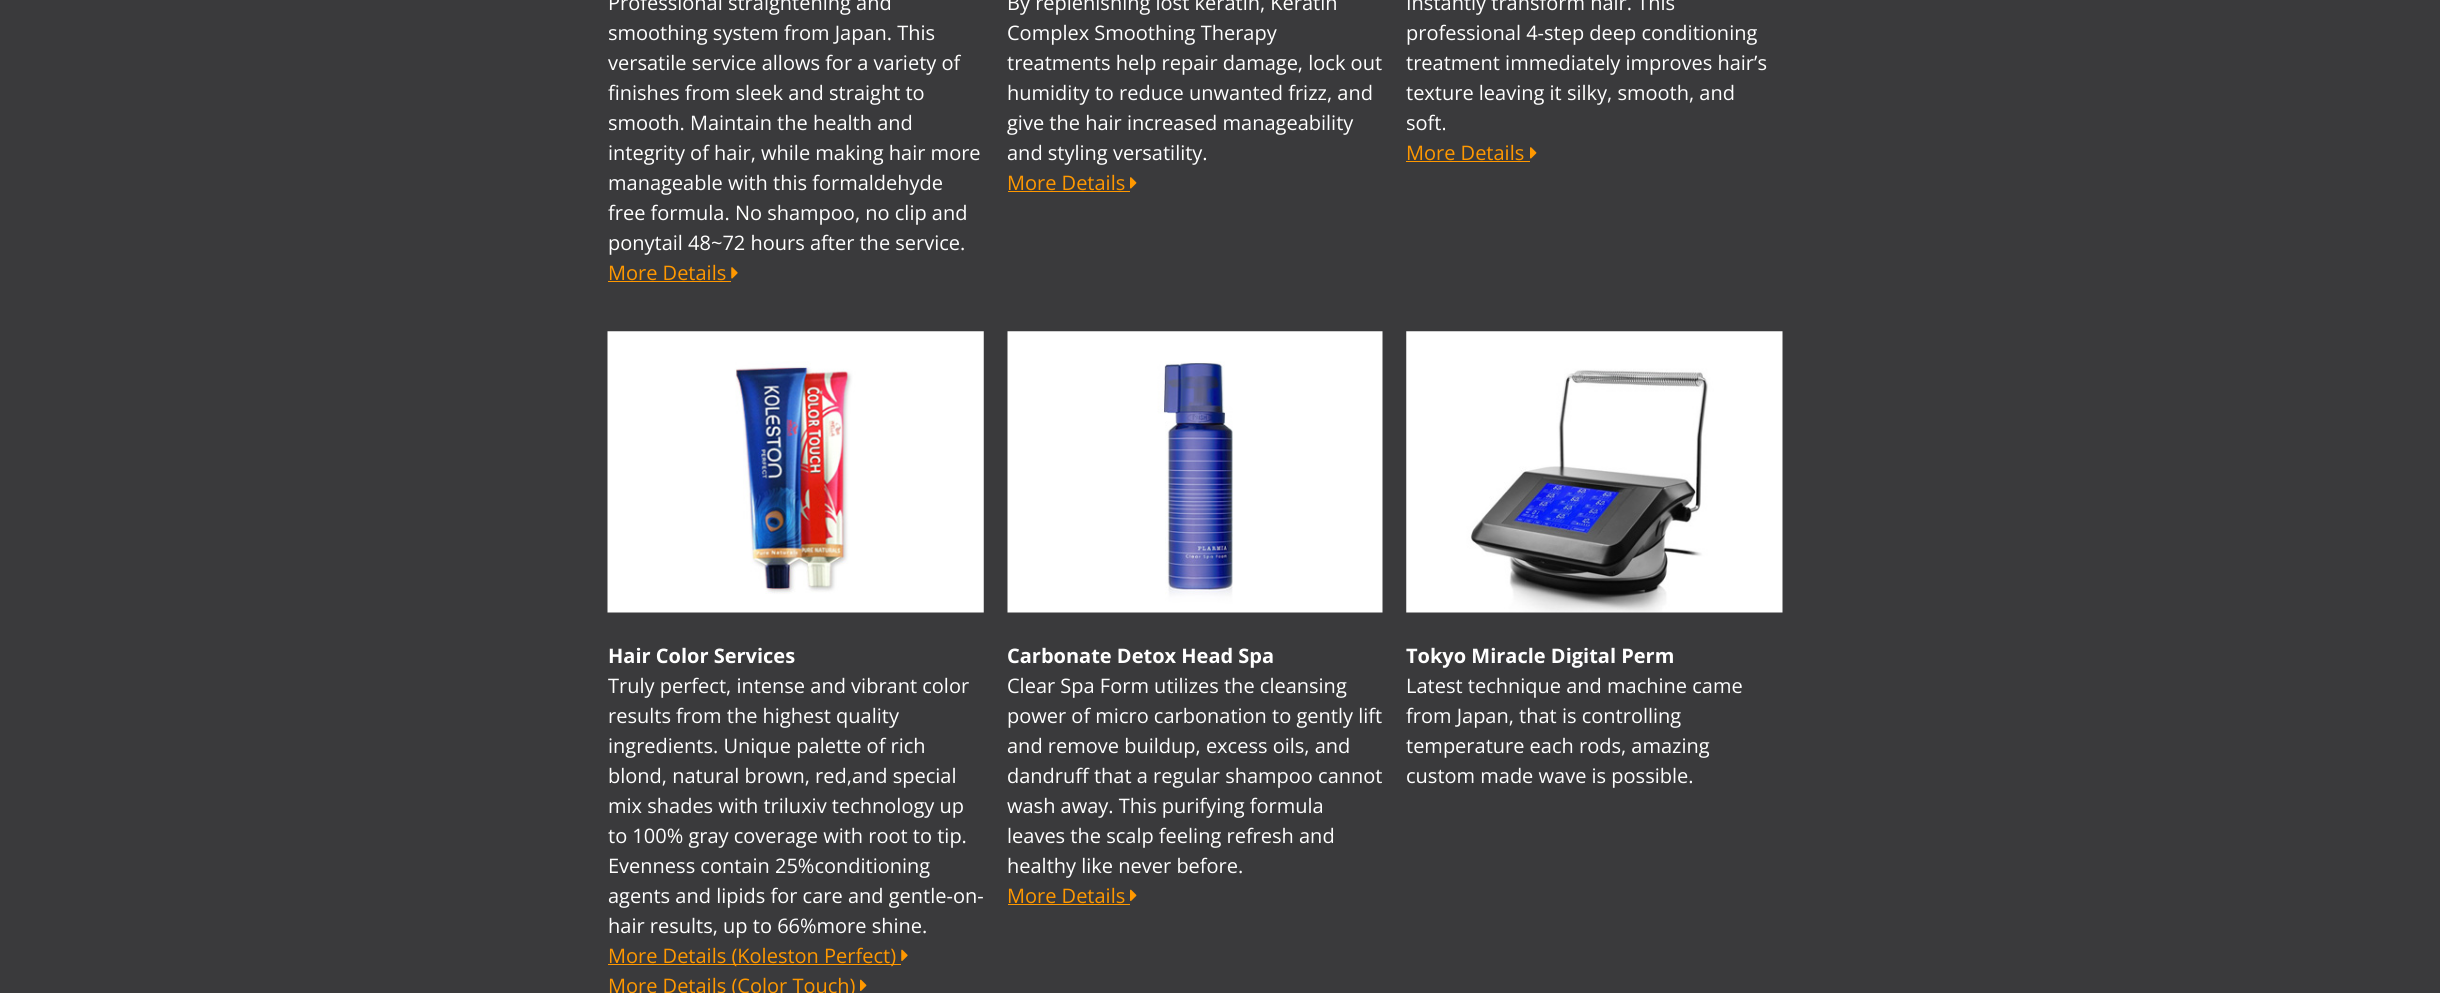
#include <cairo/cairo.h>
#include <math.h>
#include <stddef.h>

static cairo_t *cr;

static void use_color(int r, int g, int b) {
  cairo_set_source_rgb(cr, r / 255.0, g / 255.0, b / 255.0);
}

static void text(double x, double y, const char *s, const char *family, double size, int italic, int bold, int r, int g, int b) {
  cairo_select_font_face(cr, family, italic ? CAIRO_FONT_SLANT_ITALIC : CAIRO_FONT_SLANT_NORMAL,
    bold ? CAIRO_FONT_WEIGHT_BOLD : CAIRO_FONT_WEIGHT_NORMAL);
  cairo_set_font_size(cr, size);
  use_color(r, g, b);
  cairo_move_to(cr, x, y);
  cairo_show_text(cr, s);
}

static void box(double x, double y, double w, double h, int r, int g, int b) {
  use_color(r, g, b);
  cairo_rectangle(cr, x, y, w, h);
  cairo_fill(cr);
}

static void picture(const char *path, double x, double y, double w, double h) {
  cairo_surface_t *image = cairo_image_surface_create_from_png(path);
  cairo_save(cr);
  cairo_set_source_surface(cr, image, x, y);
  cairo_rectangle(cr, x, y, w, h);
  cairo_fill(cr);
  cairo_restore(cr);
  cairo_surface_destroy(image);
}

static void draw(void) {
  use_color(58, 58, 60);
  cairo_paint(cr);
  box(608, 281, 123, 1, 255, 152, 0);
  picture("img_01.png", 731, 267, 7, 12);
  box(1008, 191, 122, 1, 255, 152, 0);
  picture("img_02.png", 1130, 177, 7, 12);
  box(1406, 161, 124, 1, 255, 152, 0);
  picture("img_02.png", 1530, 147, 7, 12);
  picture("img_03.png", 607, 331, 377, 282);
  box(608, 964, 293, 1, 255, 152, 0);
  picture("img_04.png", 901, 949, 7, 12);
  picture("img_05.png", 860, 979, 7, 12);
  picture("img_06.png", 1007, 331, 376, 282);
  box(1008, 904, 122, 1, 255, 152, 0);
  picture("img_05.png", 1130, 889, 7, 12);
  picture("img_07.png", 1406, 331, 377, 282);
  text(608, 10, "Professional straightening and", "Open Sans", 20, 0, 0, 255, 255, 255);
  text(608, 40, "smoothing system from Japan. This", "Open Sans", 20, 0, 0, 255, 255, 255);
  text(608, 70, "versatile service allows for a variety of", "Open Sans", 20, 0, 0, 255, 255, 255);
  text(608, 100, "finishes from sleek and straight to", "Open Sans", 20, 0, 0, 255, 255, 255);
  text(608, 130, "smooth. Maintain the health and", "Open Sans", 20, 0, 0, 255, 255, 255);
  text(608, 160, "integrity of hair, while making hair more", "Open Sans", 20, 0, 0, 255, 255, 255);
  text(608, 190, "manageable with this formaldehyde", "Open Sans", 20, 0, 0, 255, 255, 255);
  text(608, 220, "free formula. No shampoo, no clip and", "Open Sans", 20, 0, 0, 255, 255, 255);
  text(608, 250, "ponytail 48~72 hours after the service.", "Open Sans", 20, 0, 0, 255, 255, 255);
  text(608, 280, "More Details", "Open Sans", 20, 0, 0, 255, 152, 0);
  text(1007, 10, "By replenishing lost keratin, Keratin", "Open Sans", 20, 0, 0, 255, 255, 255);
  text(1007, 40, "Complex Smoothing Therapy", "Open Sans", 20, 0, 0, 255, 255, 255);
  text(1007, 70, "treatments help repair damage, lock out", "Open Sans", 20, 0, 0, 255, 255, 255);
  text(1007, 100, "humidity to reduce unwanted frizz, and", "Open Sans", 20, 0, 0, 255, 255, 255);
  text(1007, 130, "give the hair increased manageability", "Open Sans", 20, 0, 0, 255, 255, 255);
  text(1007, 160, "and styling versatility.", "Open Sans", 20, 0, 0, 255, 255, 255);
  text(1007, 190, "More Details", "Open Sans", 20, 0, 0, 255, 152, 0);
  text(1406, 10, "Instantly transform hair. This", "Open Sans", 20, 0, 0, 255, 255, 255);
  text(1406, 40, "professional 4-step deep conditioning", "Open Sans", 20, 0, 0, 255, 255, 255);
  text(1406, 70, "treatment immediately improves hair’s", "Open Sans", 20, 0, 0, 255, 255, 255);
  text(1406, 100, "texture leaving it silky, smooth, and", "Open Sans", 20, 0, 0, 255, 255, 255);
  text(1406, 130, "soft.", "Open Sans", 20, 0, 0, 255, 255, 255);
  text(1406, 160, "More Details", "Open Sans", 20, 0, 0, 255, 152, 0);
  text(608, 663, "Hair Color Services", "Open Sans", 20, 0, 1, 255, 255, 255);
  text(608, 693, "Truly perfect, intense and vibrant color", "Open Sans", 20, 0, 0, 255, 255, 255);
  text(608, 723, "results from the highest quality", "Open Sans", 20, 0, 0, 255, 255, 255);
  text(608, 753, "ingredients. Unique palette of rich", "Open Sans", 20, 0, 0, 255, 255, 255);
  text(608, 783, "blond, natural brown, red,and special", "Open Sans", 20, 0, 0, 255, 255, 255);
  text(608, 813, "mix shades with triluxiv technology up", "Open Sans", 20, 0, 0, 255, 255, 255);
  text(608, 843, "to 100% gray coverage with root to tip.", "Open Sans", 20, 0, 0, 255, 255, 255);
  text(608, 873, "Evenness contain 25%conditioning", "Open Sans", 20, 0, 0, 255, 255, 255);
  text(608, 903, "agents and lipids for care and gentle-on-", "Open Sans", 20, 0, 0, 255, 255, 255);
  text(608, 933, "hair results, up to 66%more shine.", "Open Sans", 20, 0, 0, 255, 255, 255);
  text(608, 963, "More Details (Koleston Perfect)", "Open Sans", 20, 0, 0, 255, 152, 0);
  text(608, 993, "More Details (Color Touch)", "Open Sans", 20, 0, 0, 255, 152, 0);
  text(1007, 663, "Carbonate Detox Head Spa", "Open Sans", 20, 0, 1, 255, 255, 255);
  text(1007, 693, "Clear Spa Form utilizes the cleansing", "Open Sans", 20, 0, 0, 255, 255, 255);
  text(1007, 723, "power of micro carbonation to gently lift", "Open Sans", 20, 0, 0, 255, 255, 255);
  text(1007, 753, "and remove buildup, excess oils, and", "Open Sans", 20, 0, 0, 255, 255, 255);
  text(1007, 783, "dandruff that a regular shampoo cannot", "Open Sans", 20, 0, 0, 255, 255, 255);
  text(1007, 813, "wash away. This purifying formula", "Open Sans", 20, 0, 0, 255, 255, 255);
  text(1007, 843, "leaves the scalp feeling refresh and", "Open Sans", 20, 0, 0, 255, 255, 255);
  text(1007, 873, "healthy like never before.", "Open Sans", 20, 0, 0, 255, 255, 255);
  text(1007, 903, "More Details", "Open Sans", 20, 0, 0, 255, 152, 0);
  text(1406, 663, "Tokyo Miracle Digital Perm", "Open Sans", 20, 0, 1, 255, 255, 255);
  text(1406, 693, "Latest technique and machine came", "Open Sans", 20, 0, 0, 255, 255, 255);
  text(1406, 723, "from Japan, that is controlling", "Open Sans", 20, 0, 0, 255, 255, 255);
  text(1406, 753, "temperature each rods, amazing", "Open Sans", 20, 0, 0, 255, 255, 255);
  text(1406, 783, "custom made wave is possible.", "Open Sans", 20, 0, 0, 255, 255, 255);
}

int main(void) {
  cairo_surface_t *surface = cairo_image_surface_create(CAIRO_FORMAT_RGB24, 2440, 993);
  cr = cairo_create(surface);
  cairo_font_options_t *options = cairo_font_options_create();
  cairo_font_options_set_hint_metrics(options, CAIRO_HINT_METRICS_OFF);
  cairo_font_options_set_hint_style(options, CAIRO_HINT_STYLE_NONE);
  cairo_set_font_options(cr, options);
  cairo_set_miter_limit(cr, 4);
  draw();
  cairo_surface_write_to_png(surface, "out.png");
  cairo_font_options_destroy(options);
  cairo_destroy(cr);
  cairo_surface_destroy(surface);
  return 0;
}
